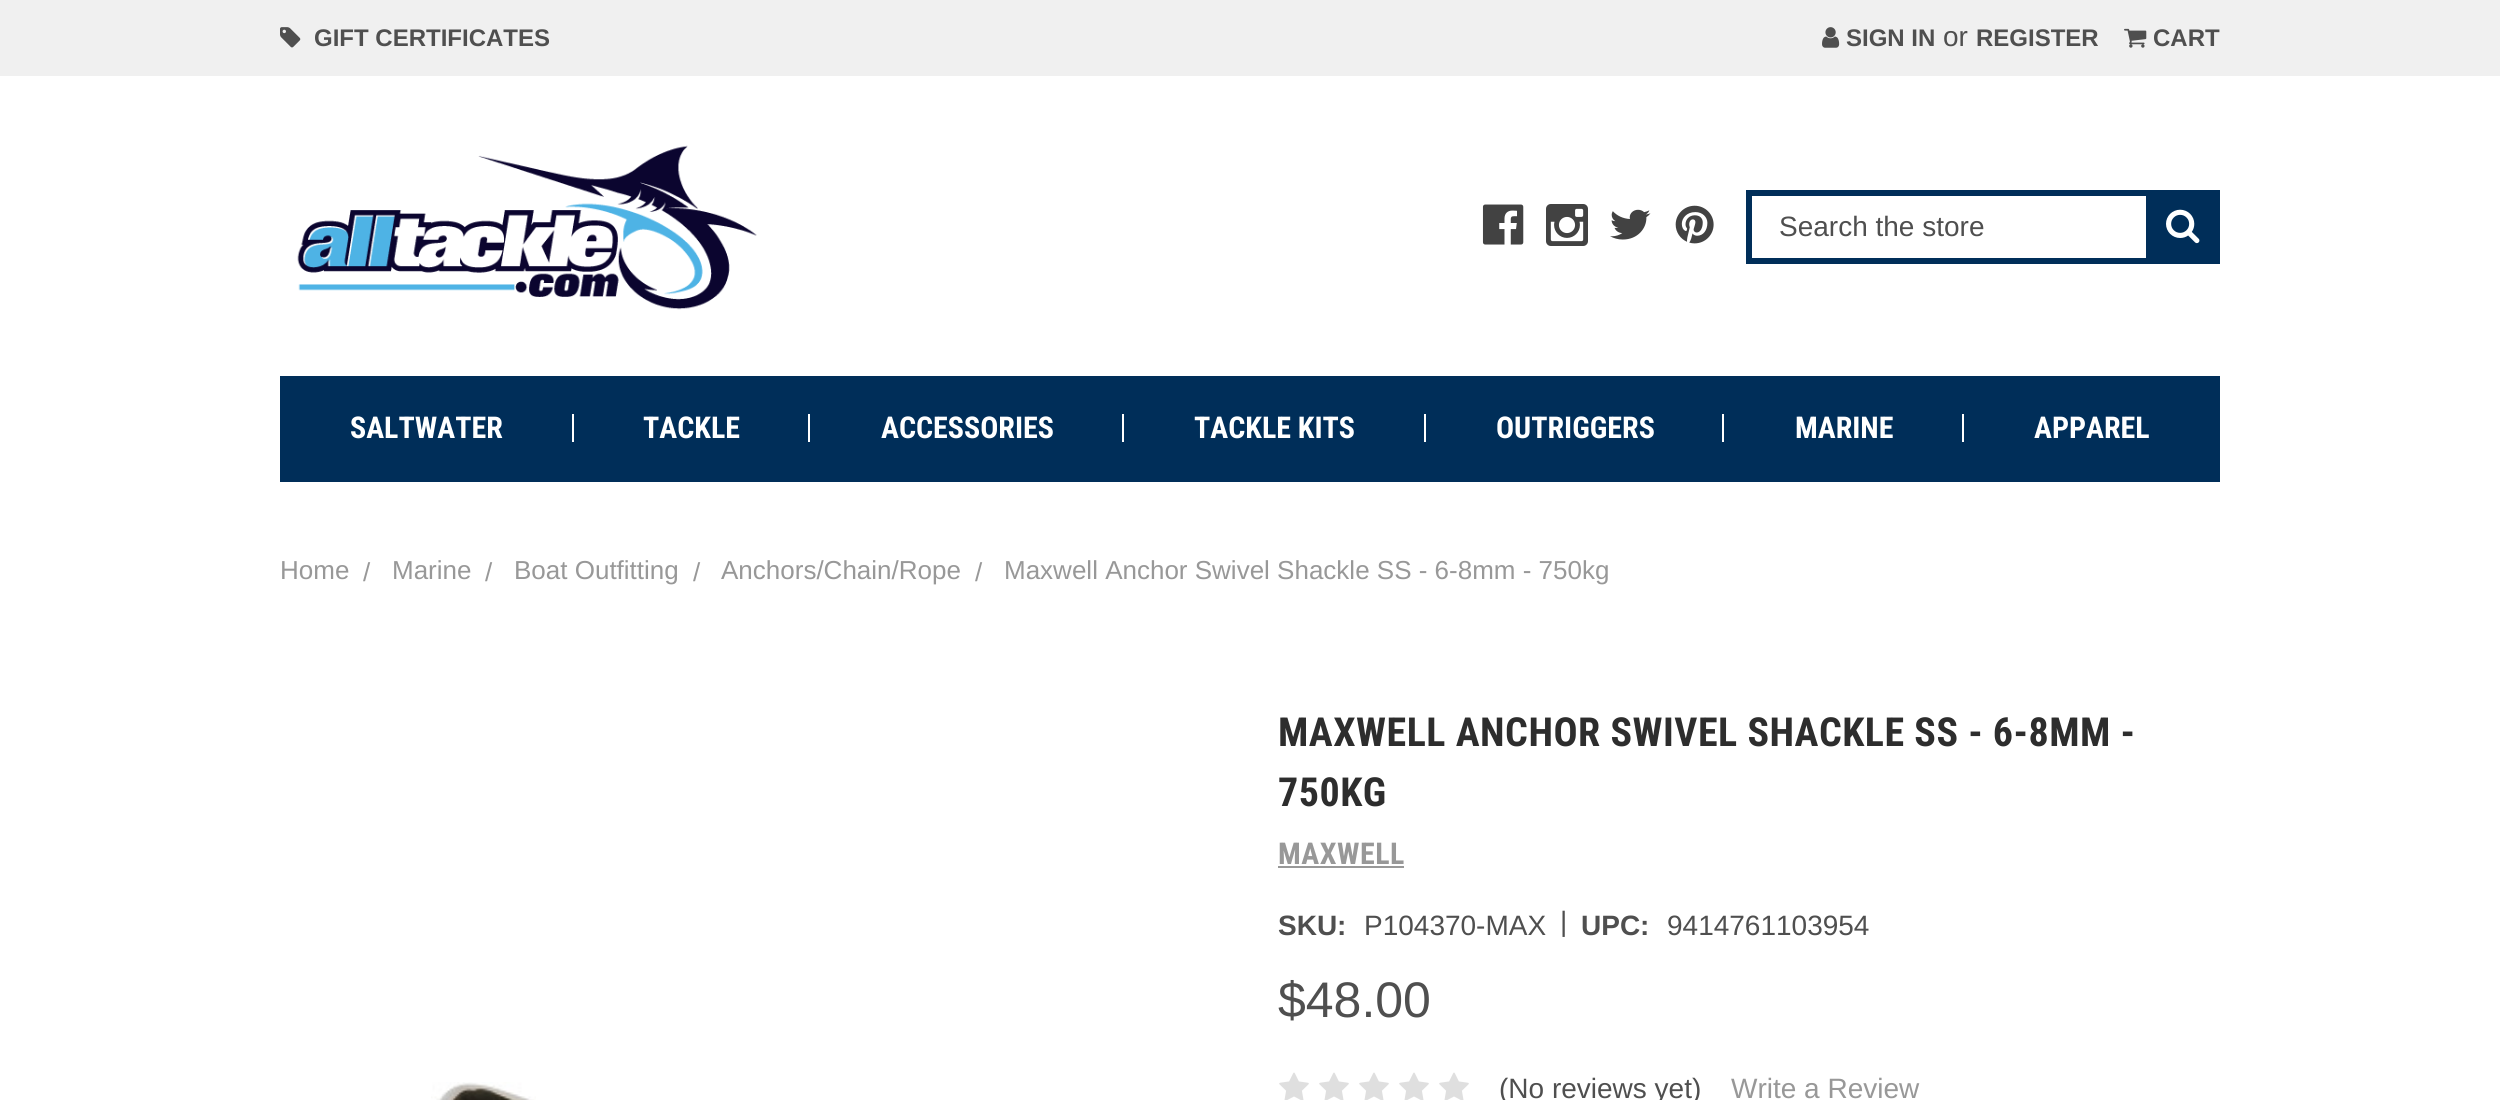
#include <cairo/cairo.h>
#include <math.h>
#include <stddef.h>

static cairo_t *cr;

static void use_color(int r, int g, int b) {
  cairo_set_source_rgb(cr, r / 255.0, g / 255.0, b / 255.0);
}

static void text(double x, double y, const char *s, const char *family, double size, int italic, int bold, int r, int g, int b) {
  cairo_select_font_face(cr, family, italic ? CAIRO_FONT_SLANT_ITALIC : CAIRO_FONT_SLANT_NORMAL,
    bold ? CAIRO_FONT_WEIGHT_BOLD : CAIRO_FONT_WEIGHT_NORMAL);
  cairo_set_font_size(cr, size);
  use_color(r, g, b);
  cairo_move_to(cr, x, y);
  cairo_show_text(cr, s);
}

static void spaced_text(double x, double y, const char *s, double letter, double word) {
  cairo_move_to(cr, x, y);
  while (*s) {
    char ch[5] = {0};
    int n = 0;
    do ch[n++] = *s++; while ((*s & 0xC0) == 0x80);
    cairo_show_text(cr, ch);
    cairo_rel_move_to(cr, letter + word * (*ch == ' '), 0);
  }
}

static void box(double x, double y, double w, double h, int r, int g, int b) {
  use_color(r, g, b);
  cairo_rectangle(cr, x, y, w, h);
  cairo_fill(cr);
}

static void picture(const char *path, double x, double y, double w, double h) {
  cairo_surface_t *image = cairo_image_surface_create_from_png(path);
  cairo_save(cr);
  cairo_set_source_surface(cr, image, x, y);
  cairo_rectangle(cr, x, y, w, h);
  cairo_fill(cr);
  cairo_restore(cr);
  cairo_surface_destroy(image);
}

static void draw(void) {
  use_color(255, 255, 255);
  cairo_paint(cr);
  box(0, 0, 2500, 76, 240, 240, 240);
  picture("img_01.png", 280, 27, 21, 21);
  picture("img_02.png", 1822, 27, 18, 21);
  picture("img_03.png", 2124, 28, 23, 20);
  picture("img_04.png", 297, 145, 460, 165);
  picture("img_05.png", 1482, 204, 42, 41);
  picture("img_06.png", 1546, 204, 42, 42);
  picture("img_07.png", 1610, 209, 41, 31);
  picture("img_08.png", 1675, 205, 39, 39);
  cairo_rectangle(cr, 1749, 193, 468, 68);
  use_color(0, 46, 89);
  cairo_set_line_width(cr, 6);
  cairo_stroke(cr);
  box(2146, 196, 68, 62, 0, 46, 89);
  picture("img_09.png", 2166, 209, 34, 35);
  box(280, 376, 1940, 106, 0, 46, 89);
  box(572, 414, 2, 28, 255, 255, 255);
  box(808, 414, 2, 28, 255, 255, 255);
  box(1122, 414, 2, 28, 255, 255, 255);
  box(1424, 414, 2, 28, 255, 255, 255);
  box(1722, 414, 2, 28, 255, 255, 255);
  box(1962, 414, 2, 28, 255, 255, 255);
  picture("img_10.png", 431, 1082, 105, 18);
  box(1278, 866, 126, 2, 152, 152, 152);
  picture("img_11.png", 1279, 1072, 30, 28);
  picture("img_11.png", 1319, 1072, 30, 28);
  picture("img_11.png", 1359, 1072, 30, 28);
  picture("img_11.png", 1399, 1072, 30, 28);
  picture("img_11.png", 1439, 1072, 30, 28);
  text(314, 46, "GIFT CERTIFICATES", "Liberation Sans", 24, 0, 1, 79, 79, 79);
  text(1846, 46, "SIGN IN", "Liberation Sans", 24, 0, 1, 79, 79, 79);
  text(1943, 46, "or", "Liberation Sans", 28, 0, 0, 79, 79, 79);
  text(1976, 46, "REGISTER", "Liberation Sans", 24, 0, 1, 79, 79, 79);
  text(2153, 46, "CART", "Liberation Sans", 24, 0, 1, 79, 79, 79);
  text(1779, 236, "Search the store", "Liberation Sans", 28, 0, 0, 79, 79, 79);
  text(350, 438, "SALTWATER", "Roboto Condensed", 30, 0, 1, 255, 255, 255);
  text(643, 438, "TACKLE", "Roboto Condensed", 30, 0, 1, 255, 255, 255);
  text(881, 438, "ACCESSORIES", "Roboto Condensed", 30, 0, 1, 255, 255, 255);
  text(1194, 438, "TACKLE KITS", "Roboto Condensed", 30, 0, 1, 255, 255, 255);
  text(1496, 438, "OUTRIGGERS", "Roboto Condensed", 30, 0, 1, 255, 255, 255);
  text(1795, 438, "MARINE", "Roboto Condensed", 30, 0, 1, 255, 255, 255);
  text(2034, 438, "APPAREL", "Roboto Condensed", 30, 0, 1, 255, 255, 255);
  text(280, 579, "Home", "Liberation Sans", 26, 0, 0, 152, 152, 152);
  text(363, 581, "/", "Liberation Sans", 26, 0, 0, 152, 152, 152);
  text(392, 579, "Marine", "Liberation Sans", 26, 0, 0, 152, 152, 152);
  text(485, 581, "/", "Liberation Sans", 26, 0, 0, 152, 152, 152);
  text(514, 579, "Boat Outfitting", "Liberation Sans", 26, 0, 0, 152, 152, 152);
  text(693, 581, "/", "Liberation Sans", 26, 0, 0, 152, 152, 152);
  text(721, 579, "Anchors/Chain/Rope", "Liberation Sans", 26, 0, 0, 152, 152, 152);
  text(975, 581, "/", "Liberation Sans", 26, 0, 0, 152, 152, 152);
  text(1004, 579, "Maxwell Anchor Swivel Shackle SS - 6-8mm - 750kg", "Liberation Sans", 26, 0, 0, 152, 152, 152);
  cairo_select_font_face(cr, "Roboto Condensed", CAIRO_FONT_SLANT_NORMAL, CAIRO_FONT_WEIGHT_BOLD);
  cairo_set_font_size(cr, 40);
  use_color(45, 45, 45);
  spaced_text(1278, 746, "MAXWELL ANCHOR SWIVEL SHACKLE SS - 6-8MM -", 0.5, 0);
  spaced_text(1278, 806, "750KG", 0.5, 0);
  cairo_set_font_size(cr, 30);
  use_color(152, 152, 152);
  spaced_text(1278, 864, "MAXWELL", 0.5, 0);
  text(1278, 935, "SKU:", "Liberation Sans", 28, 0, 1, 79, 79, 79);
  text(1364, 935, "P104370-MAX", "Liberation Sans", 28, 0, 0, 79, 79, 79);
  text(1560, 931, "|", "Liberation Sans", 28, 0, 0, 79, 79, 79);
  text(1581, 935, "UPC:", "Liberation Sans", 28, 0, 1, 79, 79, 79);
  text(1667, 935, "9414761103954", "Liberation Sans", 28, 0, 0, 79, 79, 79);
  text(1278, 1017, "$48.00", "Liberation Sans", 50, 0, 0, 79, 79, 79);
  text(1499, 1098, "(No reviews yet)", "Liberation Sans", 28, 0, 0, 79, 79, 79);
  text(1731, 1098, "Write a Review", "Liberation Sans", 28, 0, 0, 152, 152, 152);
}

int main(void) {
  cairo_surface_t *surface = cairo_image_surface_create(CAIRO_FORMAT_RGB24, 2500, 1100);
  cr = cairo_create(surface);
  cairo_font_options_t *options = cairo_font_options_create();
  cairo_font_options_set_hint_metrics(options, CAIRO_HINT_METRICS_OFF);
  cairo_font_options_set_hint_style(options, CAIRO_HINT_STYLE_NONE);
  cairo_set_font_options(cr, options);
  cairo_set_miter_limit(cr, 4);
  draw();
  cairo_surface_write_to_png(surface, "out.png");
  cairo_font_options_destroy(options);
  cairo_destroy(cr);
  cairo_surface_destroy(surface);
  return 0;
}
